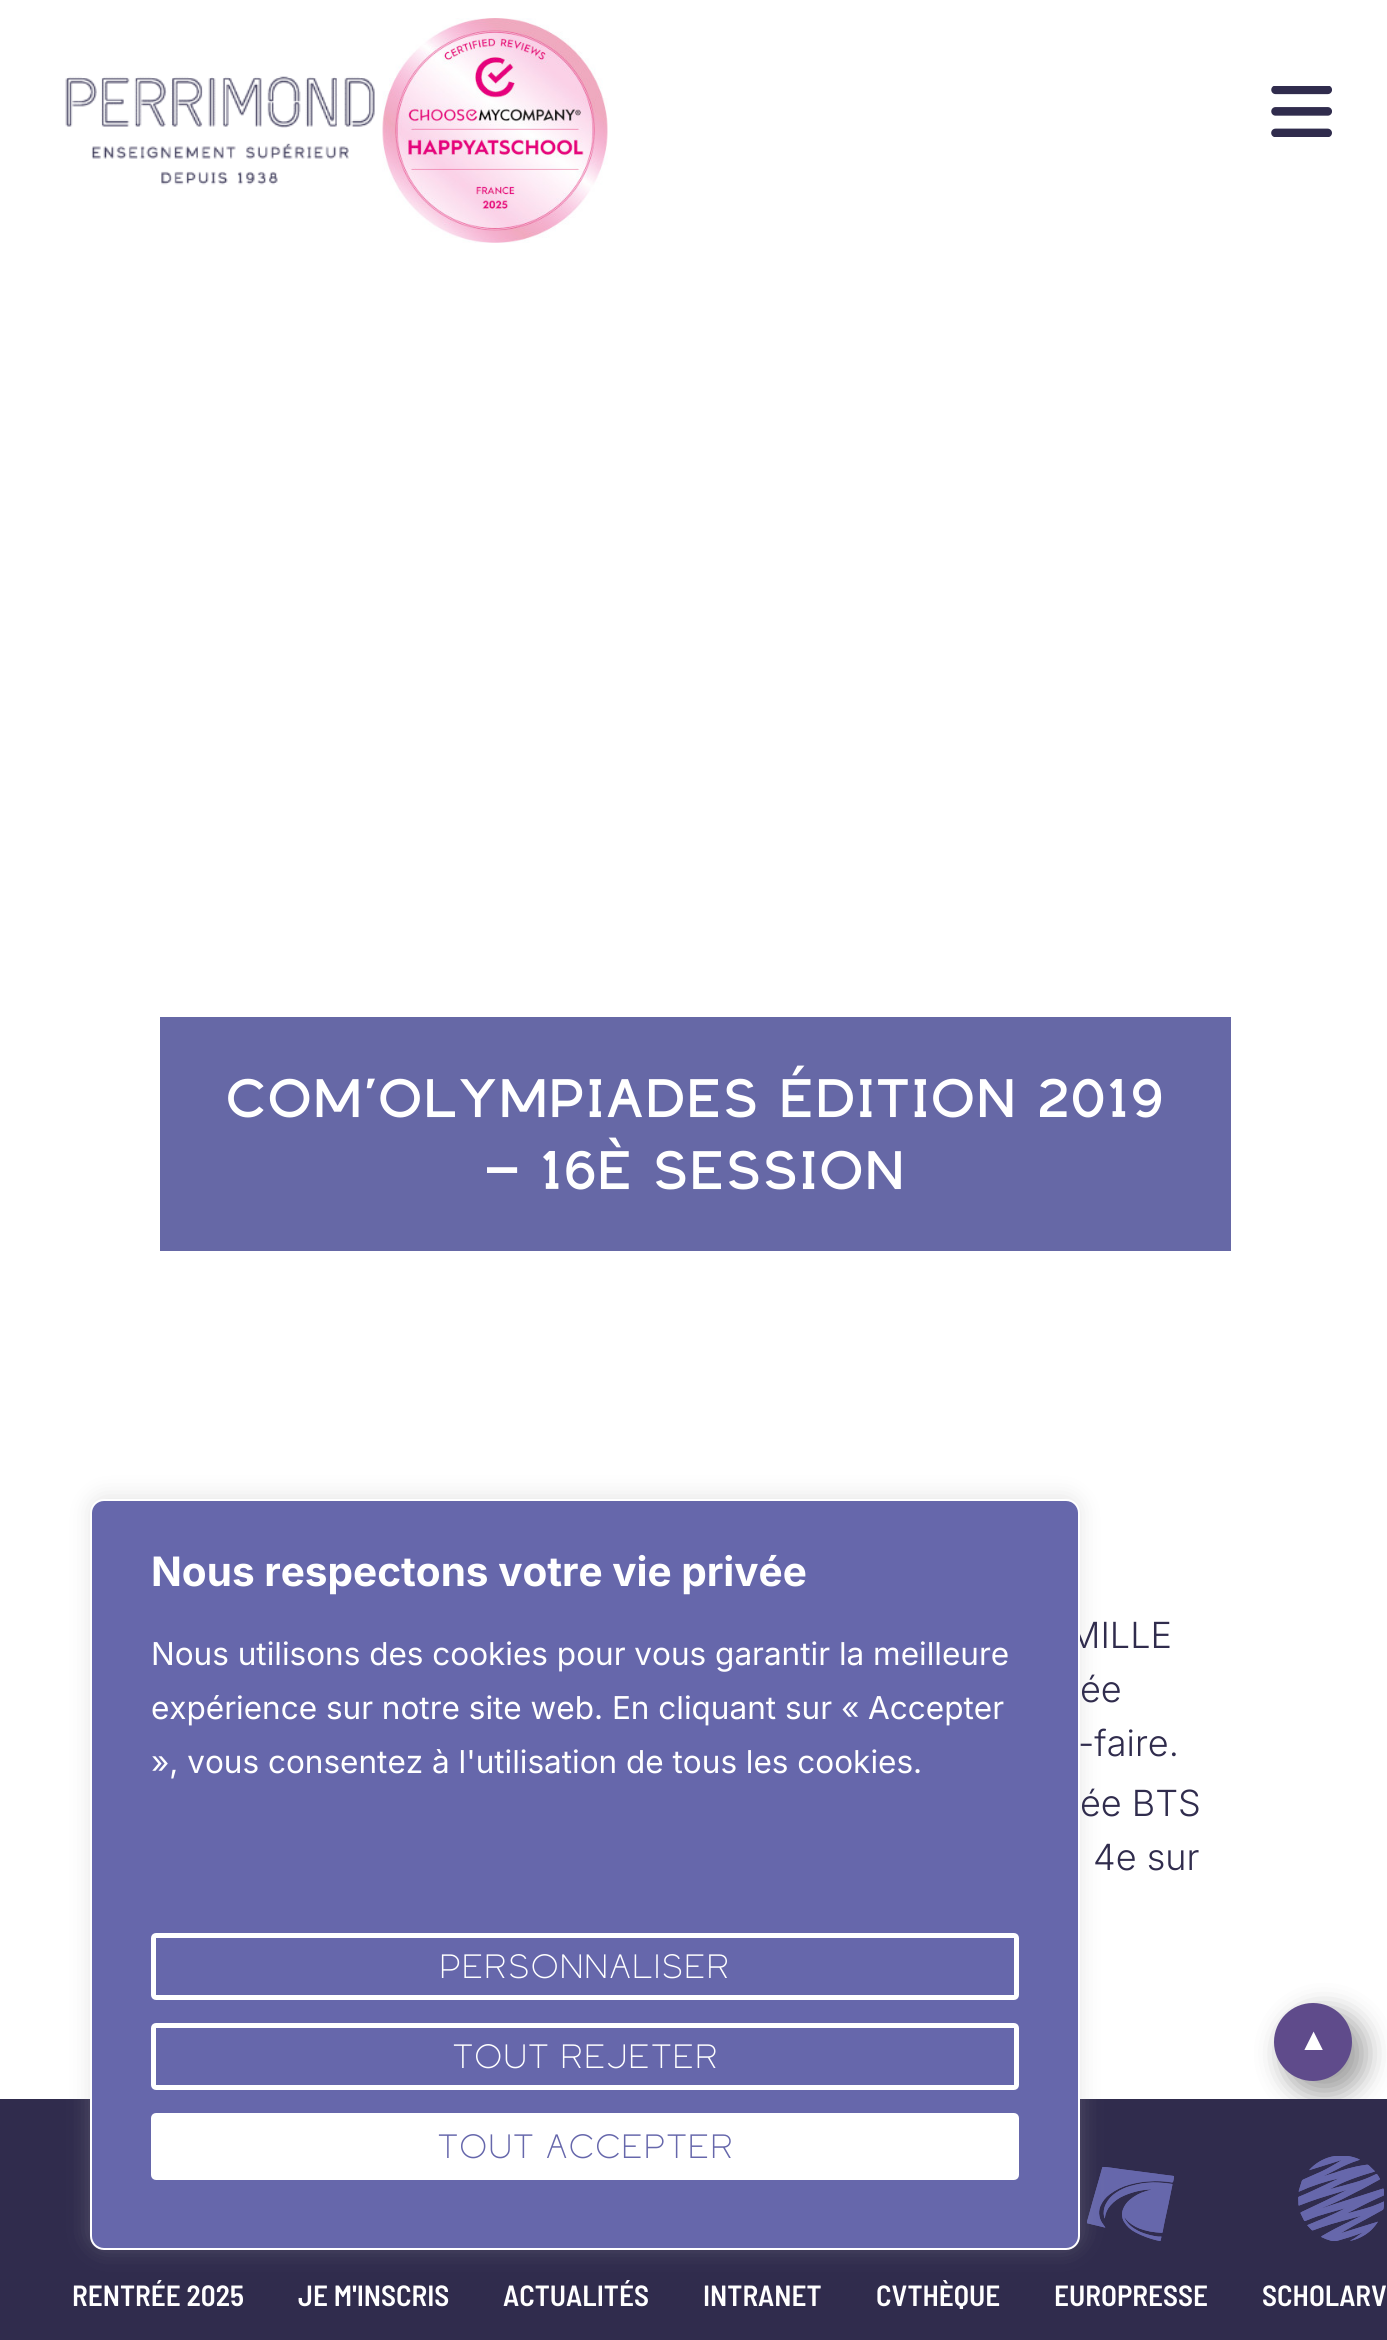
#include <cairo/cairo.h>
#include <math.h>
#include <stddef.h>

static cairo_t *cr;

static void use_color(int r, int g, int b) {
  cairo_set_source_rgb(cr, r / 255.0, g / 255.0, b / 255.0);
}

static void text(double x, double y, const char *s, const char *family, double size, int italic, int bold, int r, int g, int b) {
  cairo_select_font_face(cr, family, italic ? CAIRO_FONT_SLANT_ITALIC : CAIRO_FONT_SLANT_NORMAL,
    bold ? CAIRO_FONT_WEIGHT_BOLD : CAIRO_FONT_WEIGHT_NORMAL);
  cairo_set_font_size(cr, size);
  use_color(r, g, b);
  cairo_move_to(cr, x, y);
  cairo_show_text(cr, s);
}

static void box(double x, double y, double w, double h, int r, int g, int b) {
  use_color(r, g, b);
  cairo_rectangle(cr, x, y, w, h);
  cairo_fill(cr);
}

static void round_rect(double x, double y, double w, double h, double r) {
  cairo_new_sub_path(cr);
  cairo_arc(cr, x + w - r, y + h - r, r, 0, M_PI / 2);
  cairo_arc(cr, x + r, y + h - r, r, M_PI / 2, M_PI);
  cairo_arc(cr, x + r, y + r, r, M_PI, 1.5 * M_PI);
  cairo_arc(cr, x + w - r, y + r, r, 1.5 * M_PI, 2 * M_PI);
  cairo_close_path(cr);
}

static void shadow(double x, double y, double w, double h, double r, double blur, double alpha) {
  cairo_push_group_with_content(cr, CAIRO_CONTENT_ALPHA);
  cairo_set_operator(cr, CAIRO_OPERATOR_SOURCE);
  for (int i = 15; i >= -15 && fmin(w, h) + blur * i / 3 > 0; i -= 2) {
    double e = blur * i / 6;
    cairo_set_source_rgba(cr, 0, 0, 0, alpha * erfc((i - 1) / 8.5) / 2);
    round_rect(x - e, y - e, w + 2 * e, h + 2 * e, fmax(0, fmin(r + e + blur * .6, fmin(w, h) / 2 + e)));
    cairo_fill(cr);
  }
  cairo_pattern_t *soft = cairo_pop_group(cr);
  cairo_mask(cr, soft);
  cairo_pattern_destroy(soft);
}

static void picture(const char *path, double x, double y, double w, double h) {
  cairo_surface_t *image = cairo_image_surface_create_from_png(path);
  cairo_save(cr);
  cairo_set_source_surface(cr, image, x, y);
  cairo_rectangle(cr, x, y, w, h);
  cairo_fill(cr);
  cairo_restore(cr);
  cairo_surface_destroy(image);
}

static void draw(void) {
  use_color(255, 255, 255);
  cairo_paint(cr);
  picture("img_01.png", 65, 76, 310, 109);
  picture("img_02.png", 382, 18, 226, 225);
  picture("img_03.png", 1271, 86, 61, 51);
  box(160, 1017, 1071, 234, 102, 104, 166);
  use_color(0, 0, 0);
  shadow(1283, 2012, 83, 83, 41.5, 13.5, 0.37);
  box(0, 2099, 1387, 241, 48, 44, 77);
  picture("img_04.png", 1087, 2167, 87, 74);
  use_color(172, 171, 171);
  shadow(90, 1496, 990, 752, 14, 11, 0.3);
  use_color(95, 75, 139);
  cairo_arc(cr, 1313, 2042, 39, 0, 2 * M_PI);
  cairo_fill(cr);
  picture("img_05.png", 1298, 2156, 86, 85);
  text(225, 1117, "COM’OLYMPIADES ÉDITION 2019", "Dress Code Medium", 54, 0, 0, 255, 255, 255);
  text(483, 1189, "– 16È SESSION", "Dress Code Medium", 54, 0, 0, 255, 255, 255);
  text(1068, 1648, "MILLE", "Inter Light", 36, 0, 0, 48, 44, 77);
  text(1080, 1702, "ée", "Inter Light", 36, 0, 0, 48, 44, 77);
  text(1078, 1756, "-faire.", "Inter Light", 36, 0, 0, 48, 44, 77);
  text(1080, 1816, "ée BTS", "Inter Light", 36, 0, 0, 48, 44, 77);
  text(1093, 1870, "4e sur", "Inter Light", 36, 0, 0, 48, 44, 77);
  use_color(102, 103, 171);
  round_rect(91, 1500, 988, 749, 13);
  cairo_fill_preserve(cr);
  use_color(255, 255, 255);
  cairo_stroke(cr);
  text(151, 1586, "Nous respectons votre vie privée", "Inter", 40.5, 0, 1, 255, 255, 255);
  text(151, 1665, "Nous utilisons des cookies pour vous garantir la meilleure", "Inter", 31.5, 0, 0, 255, 255, 255);
  text(151, 1719, "expérience sur notre site web. En cliquant sur « Accepter", "Inter", 31.5, 0, 0, 255, 255, 255);
  text(151, 1773, "», vous consentez à l'utilisation de tous les cookies.", "Inter", 31.5, 0, 0, 255, 255, 255);
  round_rect(153.5, 1935.5, 863, 62, 2.5);
  cairo_set_line_width(cr, 5);
  cairo_stroke(cr);
  text(439, 1978, "Personnaliser", "Dress Code Light", 33.75, 0, 0, 255, 255, 255);
  round_rect(153.5, 2025.5, 863, 62, 2.5);
  cairo_stroke(cr);
  text(452, 2068, "Tout rejeter", "Dress Code Light", 33.75, 0, 0, 255, 255, 255);
  round_rect(153.5, 2115.5, 863, 62, 2.5);
  cairo_fill_preserve(cr);
  cairo_stroke(cr);
  text(437, 2158, "Tout accepter", "Dress Code Light", 33.75, 0, 0, 102, 103, 171);
  text(1298, 2050, "▲", "Liberation Sans", 31.5, 0, 0, 255, 255, 255);
  text(72, 2306, "RENTRÉE 2025", "Barlow Semi Condensed SemiBold", 29.25, 0, 0, 255, 255, 255);
  text(298, 2306, "JE M'INSCRIS", "Barlow Semi Condensed SemiBold", 29.25, 0, 0, 255, 255, 255);
  text(503, 2306, "ACTUALITÉS", "Barlow Semi Condensed SemiBold", 29.25, 0, 0, 255, 255, 255);
  text(703, 2306, "INTRANET", "Barlow Semi Condensed SemiBold", 29.25, 0, 0, 255, 255, 255);
  text(876, 2306, "CVTHÈQUE", "Barlow Semi Condensed SemiBold", 29.25, 0, 0, 255, 255, 255);
  text(1054, 2306, "EUROPRESSE", "Barlow Semi Condensed SemiBold", 29.25, 0, 0, 255, 255, 255);
  text(1262, 2306, "SCHOLARV", "Barlow Semi Condensed SemiBold", 29.25, 0, 0, 255, 255, 255);
}

int main(void) {
  cairo_surface_t *surface = cairo_image_surface_create(CAIRO_FORMAT_RGB24, 1387, 2340);
  cr = cairo_create(surface);
  cairo_font_options_t *options = cairo_font_options_create();
  cairo_font_options_set_hint_metrics(options, CAIRO_HINT_METRICS_OFF);
  cairo_font_options_set_hint_style(options, CAIRO_HINT_STYLE_NONE);
  cairo_set_font_options(cr, options);
  cairo_set_miter_limit(cr, 4);
  draw();
  cairo_surface_write_to_png(surface, "out.png");
  cairo_font_options_destroy(options);
  cairo_destroy(cr);
  cairo_surface_destroy(surface);
  return 0;
}
